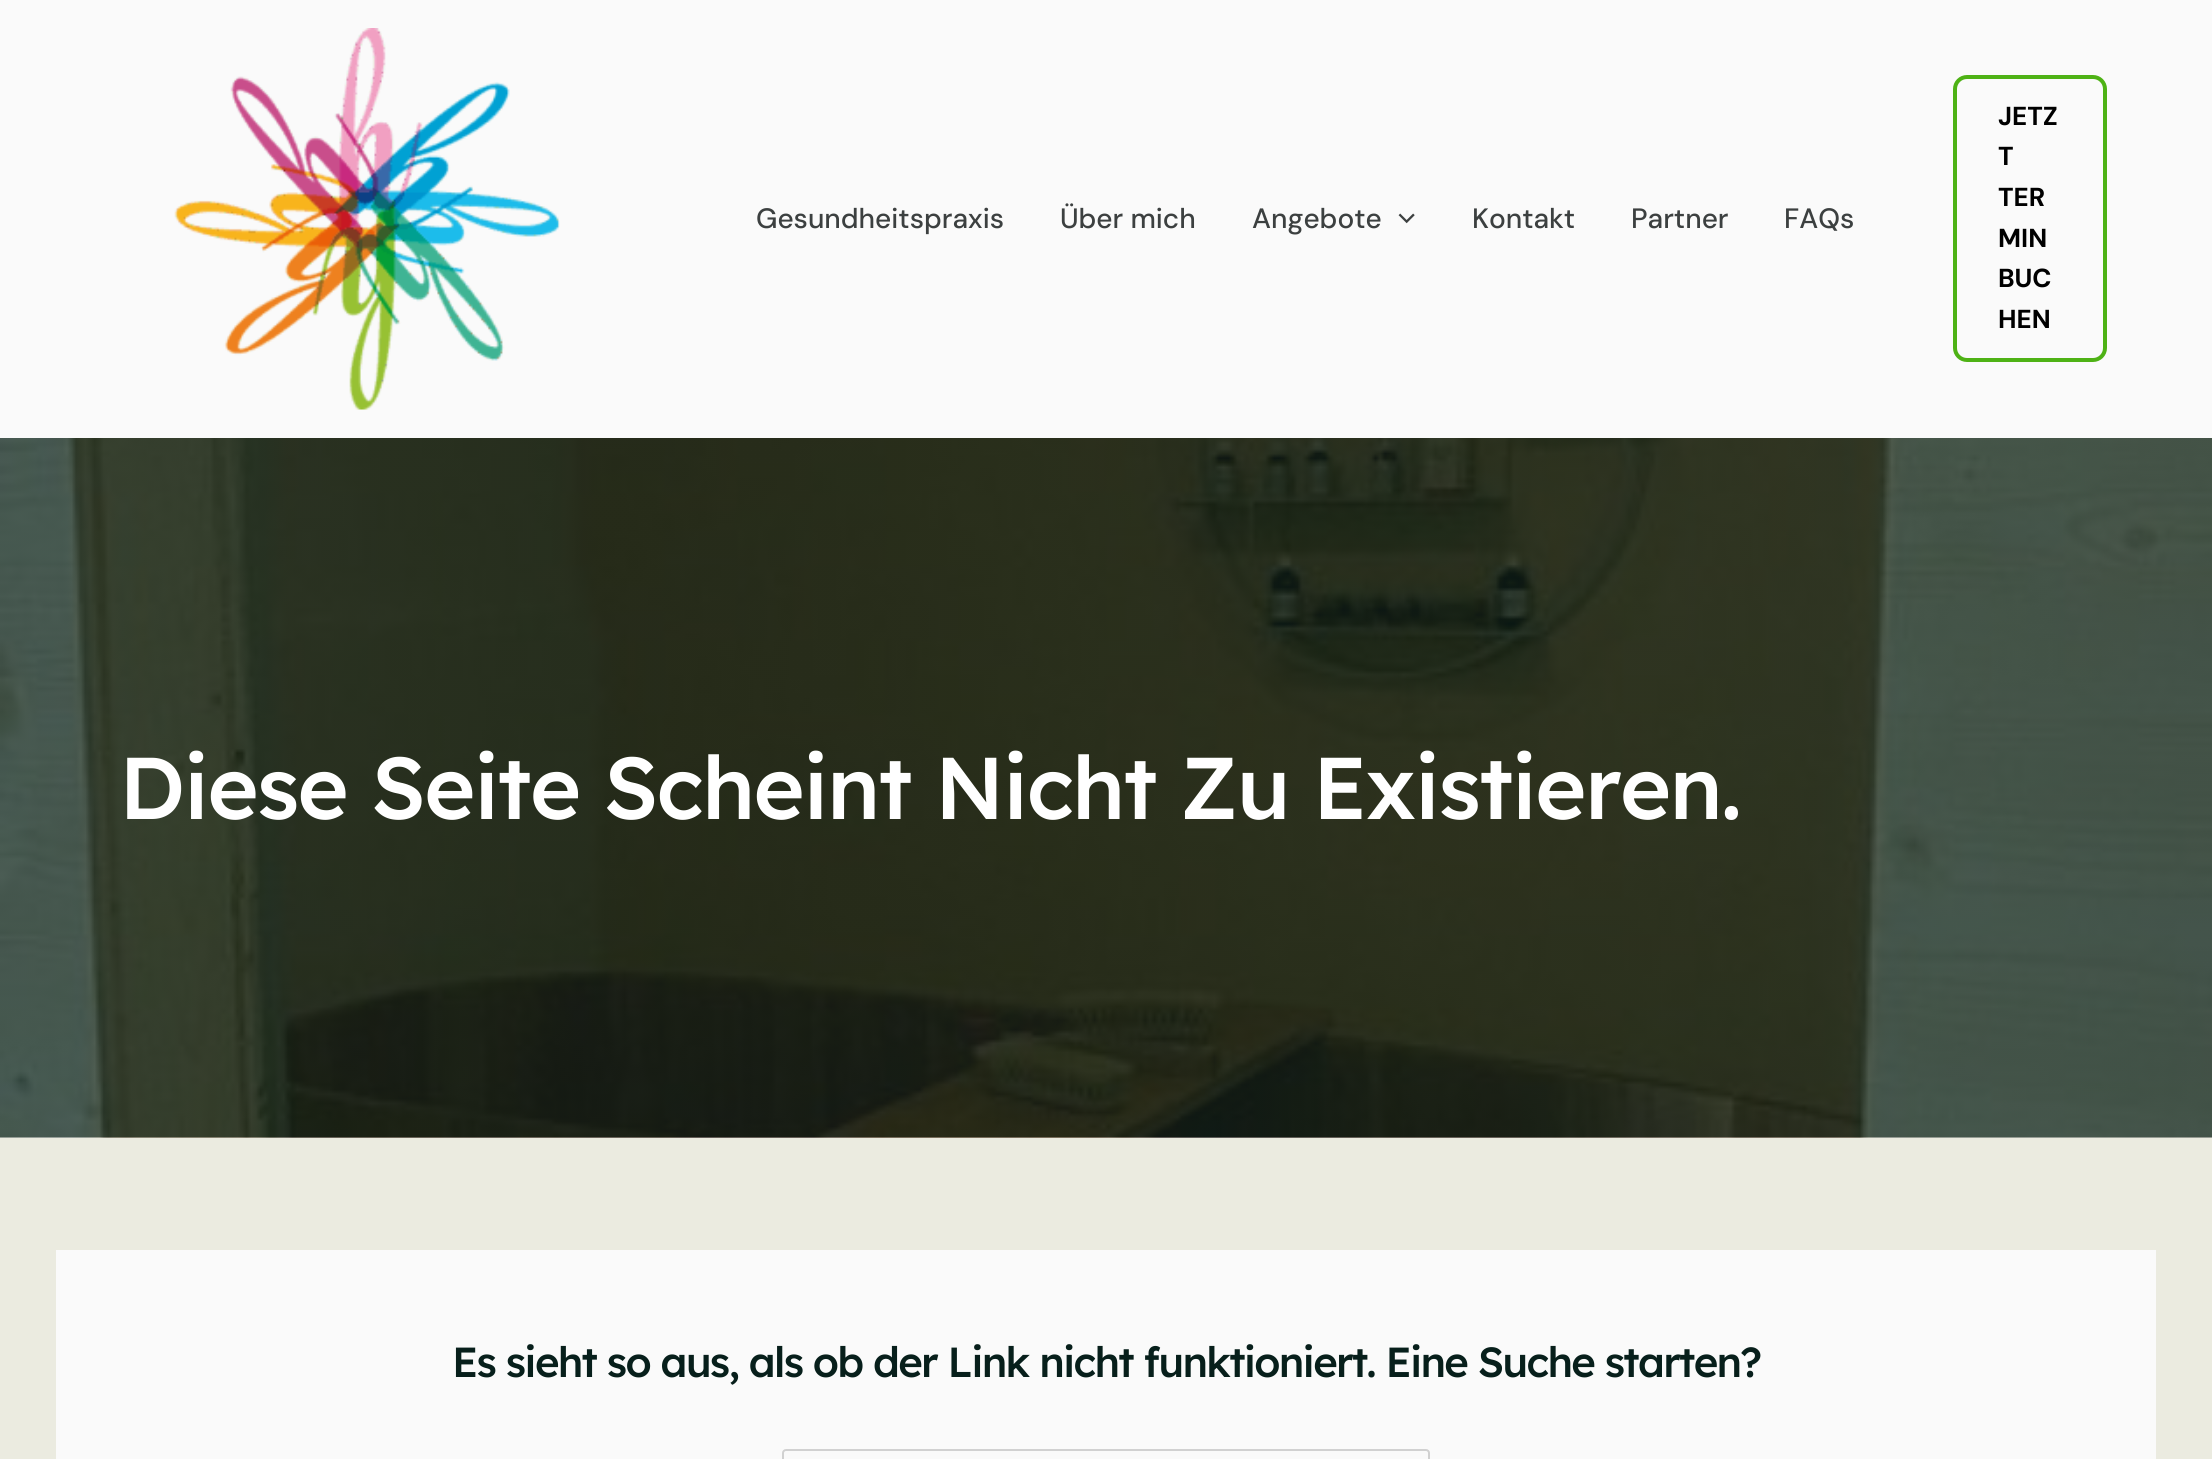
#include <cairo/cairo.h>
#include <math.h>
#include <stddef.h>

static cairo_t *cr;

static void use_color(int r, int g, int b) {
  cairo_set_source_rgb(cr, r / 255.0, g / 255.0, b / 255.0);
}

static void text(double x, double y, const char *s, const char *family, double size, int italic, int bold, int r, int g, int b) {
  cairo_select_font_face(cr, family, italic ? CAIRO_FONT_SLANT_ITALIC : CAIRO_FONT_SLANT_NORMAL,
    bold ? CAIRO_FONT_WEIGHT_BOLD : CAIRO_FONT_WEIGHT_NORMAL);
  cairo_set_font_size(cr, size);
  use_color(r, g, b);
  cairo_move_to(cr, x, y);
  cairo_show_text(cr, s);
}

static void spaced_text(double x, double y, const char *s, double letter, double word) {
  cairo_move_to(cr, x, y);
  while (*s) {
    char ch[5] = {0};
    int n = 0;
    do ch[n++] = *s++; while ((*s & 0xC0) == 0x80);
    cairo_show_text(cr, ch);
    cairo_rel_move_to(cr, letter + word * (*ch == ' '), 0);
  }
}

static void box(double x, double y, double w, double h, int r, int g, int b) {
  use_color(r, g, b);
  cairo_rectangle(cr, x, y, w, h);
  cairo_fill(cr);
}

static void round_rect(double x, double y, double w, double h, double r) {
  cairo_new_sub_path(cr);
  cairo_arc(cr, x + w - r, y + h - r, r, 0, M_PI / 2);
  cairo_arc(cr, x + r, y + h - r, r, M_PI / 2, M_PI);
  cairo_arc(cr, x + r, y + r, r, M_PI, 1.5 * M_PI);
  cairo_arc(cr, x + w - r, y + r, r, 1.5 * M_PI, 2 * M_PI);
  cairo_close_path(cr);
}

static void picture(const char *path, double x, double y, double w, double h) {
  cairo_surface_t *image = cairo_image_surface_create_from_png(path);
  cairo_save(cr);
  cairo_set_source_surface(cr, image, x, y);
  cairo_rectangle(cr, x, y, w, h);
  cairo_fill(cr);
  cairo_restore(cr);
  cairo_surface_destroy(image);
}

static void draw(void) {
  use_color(235, 235, 224);
  cairo_paint(cr);
  box(0, 0, 2212, 438, 250, 250, 250);
  picture("img_01.png", 174, 28, 386, 382);
  picture("img_02.png", 1398, 213, 17, 11);
  round_rect(1955, 77, 150, 283, 12);
  use_color(78, 178, 21);
  cairo_set_line_width(cr, 4);
  cairo_stroke(cr);
  box(0, 1137, 2212, 1, 238, 238, 238);
  picture("img_03.png", 0, 438, 2212, 700);
  box(56, 1250, 2100, 209, 250, 250, 250);
  round_rect(783, 1450, 646, 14, 3);
  use_color(209, 209, 209);
  cairo_set_line_width(cr, 2);
  cairo_stroke(cr);
  text(756, 228, "Gesundheitspraxis", "DM Sans Medium", 28, 0, 0, 60, 64, 64);
  text(1060, 228, "Über mich", "DM Sans Medium", 28, 0, 0, 60, 64, 64);
  text(1252, 228, "Angebote", "DM Sans Medium", 28, 0, 0, 60, 64, 64);
  text(1472, 228, "Kontakt", "DM Sans Medium", 28, 0, 0, 60, 64, 64);
  text(1631, 228, "Partner", "DM Sans Medium", 28, 0, 0, 60, 64, 64);
  text(1784, 228, "FAQs", "DM Sans Medium", 28, 0, 0, 60, 64, 64);
  text(1998, 125, "JETZ", "DM Sans", 26, 0, 1, 0, 0, 0);
  text(1998, 165, "T", "DM Sans", 26, 0, 1, 0, 0, 0);
  text(1998, 206, "TER", "DM Sans", 26, 0, 1, 0, 0, 0);
  text(1998, 247, "MIN", "DM Sans", 26, 0, 1, 0, 0, 0);
  text(1998, 287, "BUC", "DM Sans", 26, 0, 1, 0, 0, 0);
  text(1998, 328, "HEN", "DM Sans", 26, 0, 1, 0, 0, 0);
  cairo_select_font_face(cr, "Lexend Medium", CAIRO_FONT_SLANT_NORMAL, CAIRO_FONT_WEIGHT_NORMAL);
  cairo_set_font_size(cr, 87.5);
  use_color(255, 255, 255);
  spaced_text(119, 819, "Diese Seite Scheint Nicht Zu Existieren.", -1.75, 0);
  cairo_set_font_size(cr, 42);
  use_color(7, 31, 27);
  spaced_text(452, 1377, "Es sieht so aus, als ob der Link nicht funktioniert. Eine Suche starten?", -1.75, 0);
}

int main(void) {
  cairo_surface_t *surface = cairo_image_surface_create(CAIRO_FORMAT_RGB24, 2212, 1459);
  cr = cairo_create(surface);
  cairo_font_options_t *options = cairo_font_options_create();
  cairo_font_options_set_hint_metrics(options, CAIRO_HINT_METRICS_OFF);
  cairo_font_options_set_hint_style(options, CAIRO_HINT_STYLE_NONE);
  cairo_set_font_options(cr, options);
  cairo_set_miter_limit(cr, 4);
  draw();
  cairo_surface_write_to_png(surface, "out.png");
  cairo_font_options_destroy(options);
  cairo_destroy(cr);
  cairo_surface_destroy(surface);
  return 0;
}
